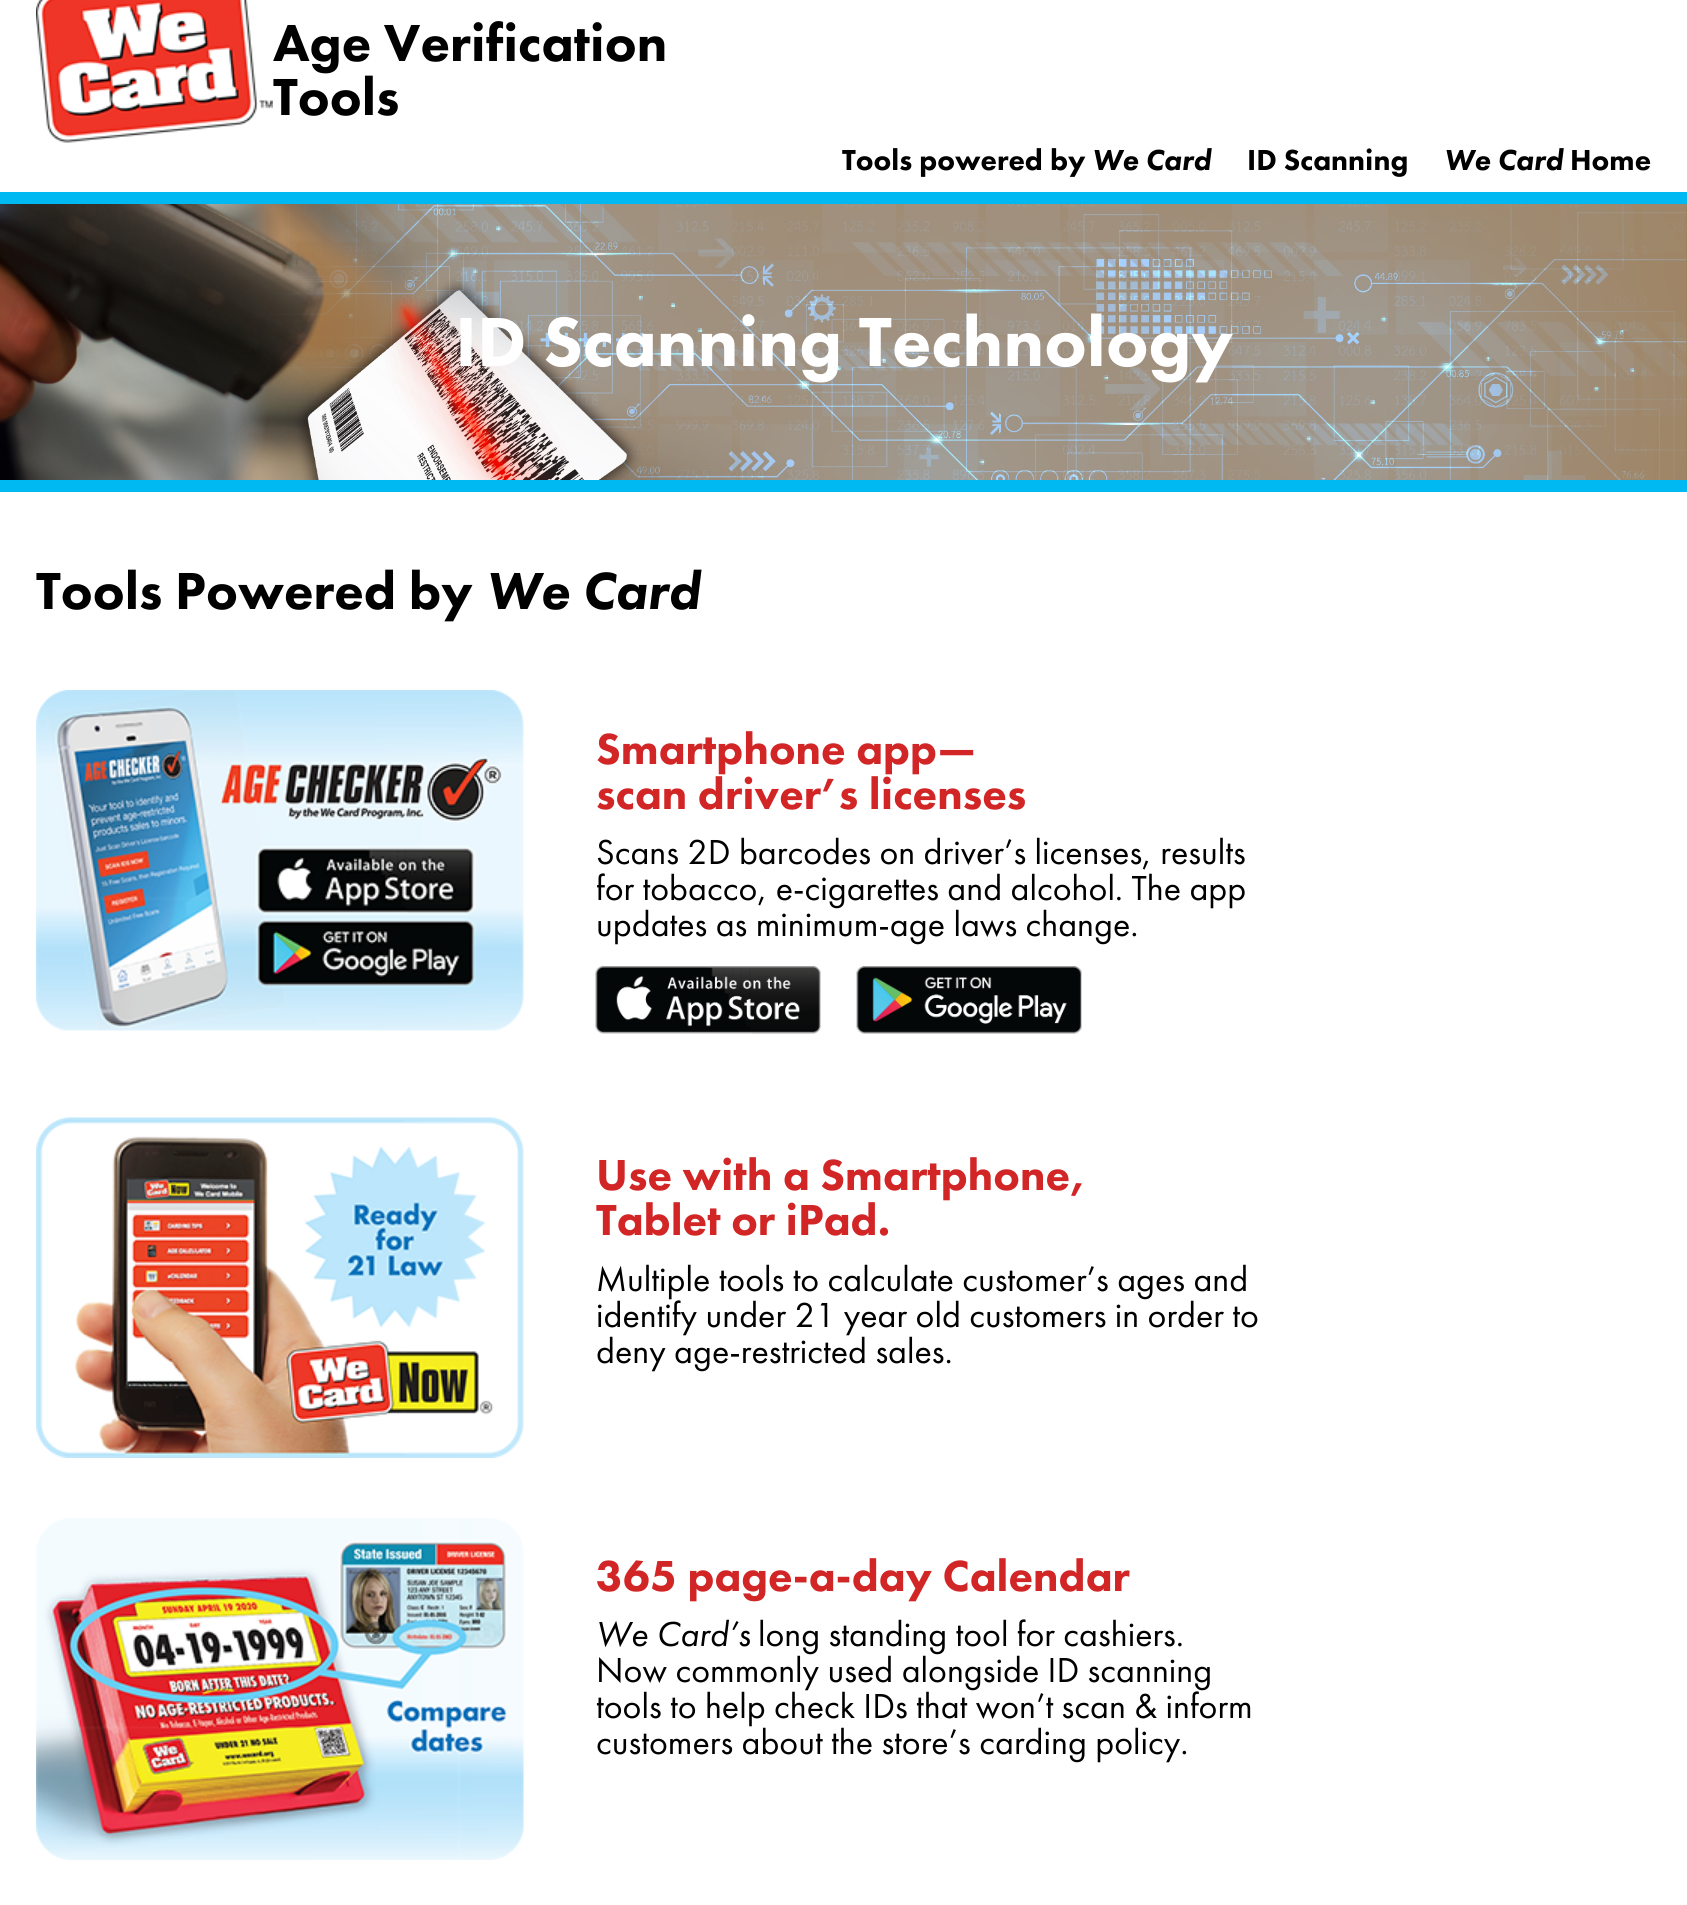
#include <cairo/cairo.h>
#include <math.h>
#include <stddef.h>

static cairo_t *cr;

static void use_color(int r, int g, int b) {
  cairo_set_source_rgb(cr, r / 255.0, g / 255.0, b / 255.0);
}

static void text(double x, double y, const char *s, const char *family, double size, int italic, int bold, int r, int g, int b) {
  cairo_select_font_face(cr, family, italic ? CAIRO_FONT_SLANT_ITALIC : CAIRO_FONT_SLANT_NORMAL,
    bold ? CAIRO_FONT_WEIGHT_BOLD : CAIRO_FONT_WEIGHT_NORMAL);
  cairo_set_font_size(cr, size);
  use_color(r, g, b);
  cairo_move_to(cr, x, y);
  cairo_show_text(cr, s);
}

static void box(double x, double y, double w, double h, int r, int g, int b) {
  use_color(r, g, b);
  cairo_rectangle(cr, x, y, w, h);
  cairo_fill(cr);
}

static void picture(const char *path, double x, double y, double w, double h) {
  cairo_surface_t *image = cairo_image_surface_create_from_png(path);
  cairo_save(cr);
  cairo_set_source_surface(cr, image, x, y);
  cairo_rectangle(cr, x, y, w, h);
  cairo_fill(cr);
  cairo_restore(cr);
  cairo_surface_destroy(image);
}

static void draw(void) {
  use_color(255, 255, 255);
  cairo_paint(cr);
  box(0, 192, 1687, 12, 0, 185, 242);
  picture("img_01.png", 36, 0, 237, 143);
  picture("img_02.png", 0, 204, 1687, 276);
  box(0, 480, 1687, 12, 0, 185, 242);
  picture("img_03.png", 36, 690, 488, 341);
  picture("img_04.png", 595, 966, 226, 68);
  picture("img_05.png", 856, 966, 226, 68);
  picture("img_06.png", 36, 1117, 488, 341);
  picture("img_07.png", 36, 1518, 488, 342);
  text(273, 61, "Age Verification", "Futura PT Black", 54, 0, 0, 0, 0, 0);
  text(273, 115, "Tools", "Futura PT Black", 54, 0, 0, 0, 0, 0);
  text(842, 170, "Tools powered by", "Futura PT Black", 30, 0, 0, 0, 0, 0);
  text(1092, 170, "We Card", "Futura PT Black", 30, 1, 0, 0, 0, 0);
  text(1247, 170, "ID Scanning", "Futura PT Black", 30, 0, 0, 0, 0, 0);
  text(1444, 170, "We Card", "Futura PT Black", 30, 1, 0, 0, 0, 0);
  text(1570, 170, "Home", "Futura PT Black", 30, 0, 0, 0, 0, 0);
  text(455, 366, "ID Scanning Technology", "Futura PT Black", 72, 0, 0, 255, 255, 255);
  text(36, 609, "Tools Powered by", "Futura PT Black", 54, 0, 0, 0, 0, 0);
  text(486, 609, "We Card", "Futura PT Black", 54, 1, 0, 0, 0, 0);
  text(596, 764, "Smartphone app—", "Futura PT Black", 45, 0, 0, 210, 37, 37);
  text(596, 809, "scan driver’s licenses", "Futura PT Black", 45, 0, 0, 210, 37, 37);
  text(596, 864, "Scans 2D barcodes on driver’s licenses, results", "Futura PT", 36, 0, 0, 0, 0, 0);
  text(596, 900, "for tobacco, e-cigarettes and alcohol. The app", "Futura PT", 36, 0, 0, 0, 0, 0);
  text(596, 936, "updates as minimum-age laws change.", "Futura PT", 36, 0, 0, 0, 0, 0);
  text(596, 1190, "Use with a Smartphone,", "Futura PT Black", 45, 0, 0, 210, 37, 37);
  text(596, 1235, "Tablet or iPad.", "Futura PT Black", 45, 0, 0, 210, 37, 37);
  text(596, 1291, "Multiple tools to calculate customer’s ages and", "Futura PT", 36, 0, 0, 0, 0, 0);
  text(596, 1327, "identify under 21 year old customers in order to", "Futura PT", 36, 0, 0, 0, 0, 0);
  text(596, 1363, "deny age-restricted sales.", "Futura PT", 36, 0, 0, 0, 0, 0);
  text(596, 1591, "365 page-a-day Calendar", "Futura PT Black", 45, 0, 0, 210, 37, 37);
  text(596, 1646, "We Card’s", "Futura PT", 36, 1, 0, 0, 0, 0);
  text(758, 1646, "long standing tool for cashiers.", "Futura PT", 36, 0, 0, 0, 0, 0);
  text(596, 1682, "Now commonly used alongside ID scanning", "Futura PT", 36, 0, 0, 0, 0, 0);
  text(596, 1718, "tools to help check IDs that won’t scan & inform", "Futura PT", 36, 0, 0, 0, 0, 0);
  text(596, 1754, "customers about the store’s carding policy.", "Futura PT", 36, 0, 0, 0, 0, 0);
}

int main(void) {
  cairo_surface_t *surface = cairo_image_surface_create(CAIRO_FORMAT_RGB24, 1687, 1905);
  cr = cairo_create(surface);
  cairo_font_options_t *options = cairo_font_options_create();
  cairo_font_options_set_hint_metrics(options, CAIRO_HINT_METRICS_OFF);
  cairo_font_options_set_hint_style(options, CAIRO_HINT_STYLE_NONE);
  cairo_set_font_options(cr, options);
  cairo_set_miter_limit(cr, 4);
  draw();
  cairo_surface_write_to_png(surface, "out.png");
  cairo_font_options_destroy(options);
  cairo_destroy(cr);
  cairo_surface_destroy(surface);
  return 0;
}
